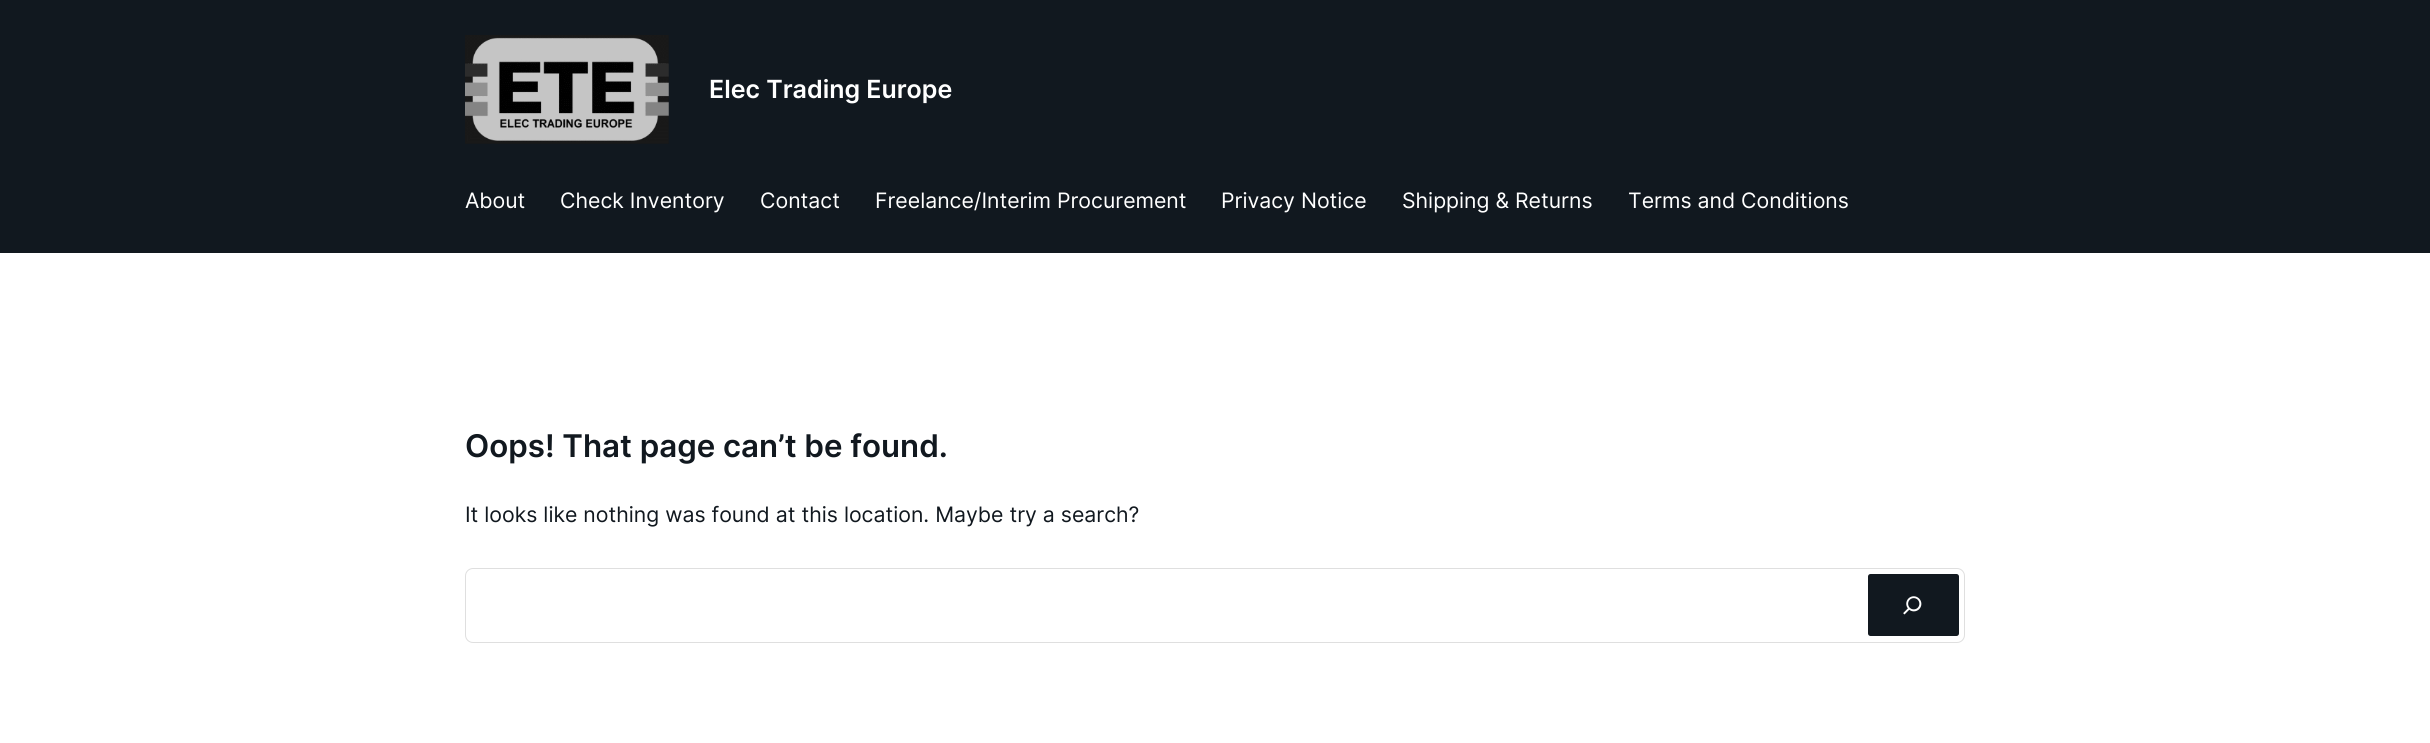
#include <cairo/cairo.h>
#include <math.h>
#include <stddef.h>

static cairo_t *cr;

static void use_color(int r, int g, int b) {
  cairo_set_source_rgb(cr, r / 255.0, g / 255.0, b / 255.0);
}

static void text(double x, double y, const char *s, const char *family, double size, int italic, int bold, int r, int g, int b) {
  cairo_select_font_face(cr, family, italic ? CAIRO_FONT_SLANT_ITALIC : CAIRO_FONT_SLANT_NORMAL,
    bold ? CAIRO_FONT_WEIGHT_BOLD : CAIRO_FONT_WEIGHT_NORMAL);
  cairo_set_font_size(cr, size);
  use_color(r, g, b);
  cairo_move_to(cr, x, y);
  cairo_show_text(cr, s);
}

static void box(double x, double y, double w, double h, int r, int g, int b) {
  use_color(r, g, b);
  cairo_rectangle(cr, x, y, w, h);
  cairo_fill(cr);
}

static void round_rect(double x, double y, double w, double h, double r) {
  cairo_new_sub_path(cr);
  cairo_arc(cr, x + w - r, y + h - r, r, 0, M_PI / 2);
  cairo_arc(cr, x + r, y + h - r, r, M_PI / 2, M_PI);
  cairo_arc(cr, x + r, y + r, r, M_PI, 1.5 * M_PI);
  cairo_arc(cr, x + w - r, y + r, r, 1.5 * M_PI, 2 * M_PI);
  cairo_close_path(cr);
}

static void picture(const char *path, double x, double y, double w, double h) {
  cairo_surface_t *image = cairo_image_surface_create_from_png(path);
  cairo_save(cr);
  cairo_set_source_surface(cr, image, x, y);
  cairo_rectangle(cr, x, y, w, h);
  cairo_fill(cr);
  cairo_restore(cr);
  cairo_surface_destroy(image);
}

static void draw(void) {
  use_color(255, 255, 255);
  cairo_paint(cr);
  box(0, 0, 2430, 253, 17, 24, 31);
  picture("img_01.png", 465, 35, 204, 109);
  round_rect(465.5, 568.5, 1499, 74, 7.5);
  use_color(223, 223, 223);
  cairo_set_line_width(cr, 1);
  cairo_stroke(cr);
  use_color(17, 24, 31);
  round_rect(1868, 574, 91, 62, 2.5);
  cairo_fill(cr);
  picture("img_02.png", 1903, 596, 19, 19);
  text(709, 98, "Elec Trading Europe", "Inter SemiBold", 25, 0, 0, 255, 255, 255);
  text(465, 208, "About", "Inter", 21.25, 0, 0, 255, 255, 255);
  text(560, 208, "Check Inventory", "Inter", 21.25, 0, 0, 255, 255, 255);
  text(760, 208, "Contact", "Inter", 21.25, 0, 0, 255, 255, 255);
  text(875, 208, "Freelance/Interim Procurement", "Inter", 21.25, 0, 0, 255, 255, 255);
  text(1221, 208, "Privacy Notice", "Inter", 21.25, 0, 0, 255, 255, 255);
  text(1402, 208, "Shipping & Returns", "Inter", 21.25, 0, 0, 255, 255, 255);
  text(1628, 208, "Terms and Conditions", "Inter", 21.25, 0, 0, 255, 255, 255);
  text(465, 457, "Oops! That page can’t be found.", "Inter SemiBold", 31.25, 0, 0, 17, 24, 31);
  text(465, 522, "It looks like nothing was found at this location. Maybe try a search?", "Inter", 21.25, 0, 0, 17, 24, 31);
}

int main(void) {
  cairo_surface_t *surface = cairo_image_surface_create(CAIRO_FORMAT_RGB24, 2430, 743);
  cr = cairo_create(surface);
  cairo_font_options_t *options = cairo_font_options_create();
  cairo_font_options_set_hint_metrics(options, CAIRO_HINT_METRICS_OFF);
  cairo_font_options_set_hint_style(options, CAIRO_HINT_STYLE_NONE);
  cairo_set_font_options(cr, options);
  cairo_set_miter_limit(cr, 4);
  draw();
  cairo_surface_write_to_png(surface, "out.png");
  cairo_font_options_destroy(options);
  cairo_destroy(cr);
  cairo_surface_destroy(surface);
  return 0;
}
